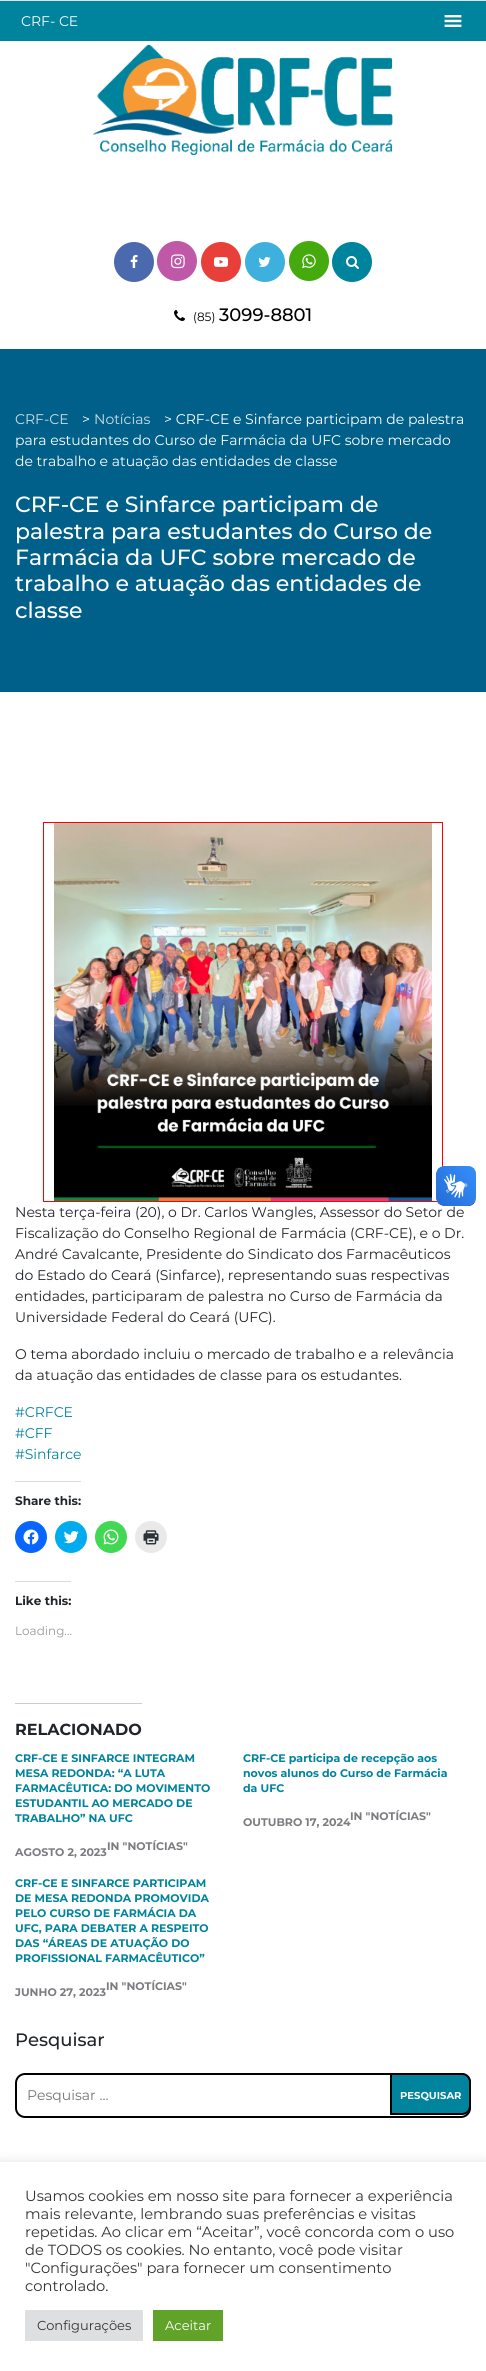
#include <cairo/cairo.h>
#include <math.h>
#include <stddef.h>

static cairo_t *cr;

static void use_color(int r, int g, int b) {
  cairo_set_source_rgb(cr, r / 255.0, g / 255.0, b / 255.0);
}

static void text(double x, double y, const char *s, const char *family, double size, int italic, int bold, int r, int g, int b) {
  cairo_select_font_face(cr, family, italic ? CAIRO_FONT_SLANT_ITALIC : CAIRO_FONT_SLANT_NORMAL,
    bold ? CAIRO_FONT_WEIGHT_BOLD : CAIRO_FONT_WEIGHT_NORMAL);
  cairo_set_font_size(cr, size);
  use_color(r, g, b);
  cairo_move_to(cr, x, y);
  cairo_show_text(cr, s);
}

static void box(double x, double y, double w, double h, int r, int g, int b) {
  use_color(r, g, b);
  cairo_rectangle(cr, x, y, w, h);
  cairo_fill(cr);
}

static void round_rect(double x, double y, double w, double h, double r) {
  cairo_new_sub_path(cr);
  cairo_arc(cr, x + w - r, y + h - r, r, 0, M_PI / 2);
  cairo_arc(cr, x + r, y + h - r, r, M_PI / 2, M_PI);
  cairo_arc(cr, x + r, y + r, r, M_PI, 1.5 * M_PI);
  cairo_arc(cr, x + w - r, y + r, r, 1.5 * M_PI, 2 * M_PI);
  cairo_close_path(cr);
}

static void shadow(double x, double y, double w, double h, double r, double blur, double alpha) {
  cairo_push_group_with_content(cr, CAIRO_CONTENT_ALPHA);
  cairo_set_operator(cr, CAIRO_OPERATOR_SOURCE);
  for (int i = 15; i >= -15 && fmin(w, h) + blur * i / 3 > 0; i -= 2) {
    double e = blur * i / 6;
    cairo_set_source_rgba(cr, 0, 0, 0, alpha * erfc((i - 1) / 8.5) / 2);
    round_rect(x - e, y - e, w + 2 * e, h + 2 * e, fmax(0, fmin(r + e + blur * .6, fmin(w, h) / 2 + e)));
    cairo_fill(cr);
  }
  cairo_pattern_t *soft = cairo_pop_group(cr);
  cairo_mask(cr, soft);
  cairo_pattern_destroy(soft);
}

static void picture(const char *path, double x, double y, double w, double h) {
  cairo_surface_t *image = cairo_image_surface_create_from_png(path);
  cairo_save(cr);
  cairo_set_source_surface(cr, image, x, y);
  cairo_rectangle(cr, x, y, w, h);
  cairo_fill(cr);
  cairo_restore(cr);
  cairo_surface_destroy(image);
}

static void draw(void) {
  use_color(255, 255, 255);
  cairo_paint(cr);
  box(0, 1, 486, 40, 0, 131, 157);
  box(0, 0, 486, 1, 226, 226, 226);
  picture("img_01.png", 444, 15, 18, 12);
  picture("img_02.png", 93, 44, 300, 112);
  use_color(75, 105, 175);
  cairo_arc(cr, 134, 262, 20, 0, 2 * M_PI);
  cairo_fill(cr);
  picture("img_03.png", 130, 255, 8, 13);
  use_color(192, 88, 168);
  cairo_arc(cr, 177, 261, 20, 0, 2 * M_PI);
  cairo_fill(cr);
  picture("img_04.png", 171, 254, 14, 15);
  use_color(232, 63, 58);
  cairo_arc(cr, 221, 262, 20, 0, 2 * M_PI);
  cairo_fill(cr);
  picture("img_05.png", 214, 257, 14, 10);
  use_color(62, 176, 221);
  cairo_arc(cr, 265, 262, 20, 0, 2 * M_PI);
  cairo_fill(cr);
  picture("img_06.png", 258, 257, 13, 10);
  use_color(69, 170, 13);
  cairo_arc(cr, 309, 261, 20, 0, 2 * M_PI);
  cairo_fill(cr);
  picture("img_07.png", 302, 254, 14, 15);
  use_color(0, 131, 157);
  cairo_arc(cr, 352, 262, 20, 0, 2 * M_PI);
  cairo_fill(cr);
  picture("img_08.png", 346, 256, 13, 13);
  picture("img_09.png", 174, 310, 11, 11);
  box(0, 349, 486, 343, 0, 96, 137);
  cairo_rectangle(cr, 43.5, 822.5, 399, 379);
  use_color(255, 0, 0);
  cairo_set_line_width(cr, 1);
  cairo_stroke(cr);
  picture("img_10.png", 54, 823, 378, 378);
  box(15, 1481, 66, 1, 220, 220, 222);
  use_color(8, 102, 255);
  cairo_arc(cr, 31, 1537, 16, 0, 2 * M_PI);
  cairo_fill(cr);
  picture("img_11.png", 23, 1529, 16, 16);
  use_color(0, 172, 238);
  cairo_arc(cr, 71, 1537, 16, 0, 2 * M_PI);
  cairo_fill(cr);
  picture("img_12.png", 63, 1531, 16, 13);
  use_color(67, 216, 84);
  cairo_arc(cr, 111, 1537, 16, 0, 2 * M_PI);
  cairo_fill(cr);
  picture("img_13.png", 103, 1529, 16, 16);
  use_color(233, 233, 233);
  cairo_arc(cr, 151, 1537, 16, 0, 2 * M_PI);
  cairo_fill(cr);
  picture("img_14.png", 143, 1530, 16, 15);
  box(15, 1581, 56, 1, 220, 220, 222);
  box(15, 1703, 127, 1, 204, 204, 204);
  round_rect(16, 2074, 454, 43, 9);
  use_color(0, 0, 0);
  cairo_set_line_width(cr, 2);
  cairo_stroke(cr);
  use_color(0, 131, 157);
  cairo_new_path(cr);
  cairo_move_to(cr, 391, 2074);
  cairo_line_to(cr, 462, 2074);
  cairo_curve_to(cr, 466.5, 2074, 470, 2077.5, 470, 2082);
  cairo_line_to(cr, 470, 2106);
  cairo_curve_to(cr, 470, 2110.5, 466.5, 2114, 462, 2114);
  cairo_line_to(cr, 391, 2114);
  cairo_close_path(cr);
  cairo_fill_preserve(cr);
  use_color(0, 0, 0);
  cairo_stroke(cr);
  picture("img_15.png", 436, 1166, 40, 40);
  picture("img_16.png", 436, 1166, 40, 40);
  use_color(172, 171, 171);
  shadow(0, 2161, 486, 209, 0, 5, 0.3);
  box(0, 2162, 486, 209, 255, 255, 255);
  box(25, 2310, 118, 31, 222, 223, 224);
  box(153, 2310, 70, 31, 97, 162, 41);
  text(21, 26, "CRF- CE", "Montserrat", 14, 0, 0, 255, 255, 255);
  text(193, 321, "(85)", "Montserrat", 12, 0, 0, 0, 0, 0);
  text(219, 321, "3099-8801", "Montserrat Medium", 18, 0, 0, 0, 0, 0);
  text(15, 424, "CRF-CE", "Montserrat", 14, 0, 0, 204, 223, 231);
  text(82, 424, ">", "Montserrat", 14, 0, 0, 255, 255, 255);
  text(94, 424, "Notícias", "Montserrat", 14, 0, 0, 204, 223, 231);
  text(164, 424, "> CRF-CE e Sinfarce participam de palestra", "Montserrat", 14, 0, 0, 255, 255, 255);
  text(15, 445, "para estudantes do Curso de Farmácia da UFC sobre mercado", "Montserrat", 14, 0, 0, 255, 255, 255);
  text(15, 466, "de trabalho e atuação das entidades de classe", "Montserrat", 14, 0, 0, 255, 255, 255);
  text(15, 512, "CRF-CE e Sinfarce participam de", "Montserrat Medium", 22, 0, 0, 255, 255, 255);
  text(15, 539, "palestra para estudantes do Curso de", "Montserrat Medium", 22, 0, 0, 255, 255, 255);
  text(15, 565, "Farmácia da UFC sobre mercado de", "Montserrat Medium", 22, 0, 0, 255, 255, 255);
  text(15, 591, "trabalho e atuação das entidades de", "Montserrat Medium", 22, 0, 0, 255, 255, 255);
  text(15, 618, "classe", "Montserrat Medium", 22, 0, 0, 255, 255, 255);
  text(15, 1217, "Nesta terça-feira (20), o Dr. Carlos Wangles, Assessor do Setor de", "Montserrat", 14, 0, 0, 33, 37, 41);
  text(15, 1238, "Fiscalização do Conselho Regional de Farmácia (CRF-CE), e o Dr.", "Montserrat", 14, 0, 0, 33, 37, 41);
  text(15, 1259, "André Cavalcante, Presidente do Sindicato dos Farmacêuticos", "Montserrat", 14, 0, 0, 33, 37, 41);
  text(15, 1280, "do Estado do Ceará (Sinfarce), representando suas respectivas", "Montserrat", 14, 0, 0, 33, 37, 41);
  text(15, 1301, "entidades, participaram de palestra no Curso de Farmácia da", "Montserrat", 14, 0, 0, 33, 37, 41);
  text(15, 1322, "Universidade Federal do Ceará (UFC).", "Montserrat", 14, 0, 0, 33, 37, 41);
  text(15, 1359, "O tema abordado incluiu o mercado de trabalho e a relevância", "Montserrat", 14, 0, 0, 33, 37, 41);
  text(15, 1380, "da atuação das entidades de classe para os estudantes.", "Montserrat", 14, 0, 0, 33, 37, 41);
  text(15, 1417, "#CRFCE", "Montserrat", 14, 0, 0, 0, 131, 157);
  text(15, 1438, "#CFF", "Montserrat", 14, 0, 0, 0, 131, 157);
  text(15, 1459, "#Sinfarce", "Montserrat", 14, 0, 0, 0, 131, 157);
  text(15, 1505, "Share this:", "Montserrat", 12, 0, 1, 33, 37, 41);
  text(15, 1605, "Like this:", "Montserrat", 12, 0, 1, 33, 37, 41);
  text(15, 1635, "Loading...", "Montserrat", 12, 0, 0, 153, 153, 153);
  text(15, 1735, "RELACIONADO", "Montserrat", 16, 0, 1, 33, 37, 41);
  text(15, 1762, "CRF-CE E SINFARCE INTEGRAM", "Montserrat", 11, 0, 1, 0, 131, 157);
  text(15, 1777, "MESA REDONDA: “A LUTA", "Montserrat", 11, 0, 1, 0, 131, 157);
  text(15, 1792, "FARMACÊUTICA: DO MOVIMENTO", "Montserrat", 11, 0, 1, 0, 131, 157);
  text(15, 1807, "ESTUDANTIL AO MERCADO DE", "Montserrat", 11, 0, 1, 0, 131, 157);
  text(15, 1822, "TRABALHO” NA UFC", "Montserrat", 11, 0, 1, 0, 131, 157);
  text(107, 1850, "IN \"NOTÍCIAS\"", "Montserrat", 11, 0, 1, 122, 124, 127);
  text(15, 1856, "AGOSTO 2, 2023", "Montserrat", 11, 0, 1, 122, 124, 127);
  text(243, 1762, "CRF-CE participa de recepção aos", "Montserrat", 11, 0, 1, 0, 131, 157);
  text(243, 1777, "novos alunos do Curso de Farmácia", "Montserrat", 11, 0, 1, 0, 131, 157);
  text(243, 1792, "da UFC", "Montserrat", 11, 0, 1, 0, 131, 157);
  text(350, 1820, "IN \"NOTÍCIAS\"", "Montserrat", 11, 0, 1, 122, 124, 127);
  text(243, 1826, "OUTUBRO 17, 2024", "Montserrat", 11, 0, 1, 122, 124, 127);
  text(15, 1887, "CRF-CE E SINFARCE PARTICIPAM", "Montserrat", 11, 0, 1, 0, 131, 157);
  text(15, 1902, "DE MESA REDONDA PROMOVIDA", "Montserrat", 11, 0, 1, 0, 131, 157);
  text(15, 1917, "PELO CURSO DE FARMÁCIA DA", "Montserrat", 11, 0, 1, 0, 131, 157);
  text(15, 1932, "UFC, PARA DEBATER A RESPEITO", "Montserrat", 11, 0, 1, 0, 131, 157);
  text(15, 1947, "DAS “ÁREAS DE ATUAÇÃO DO", "Montserrat", 11, 0, 1, 0, 131, 157);
  text(15, 1962, "PROFISSIONAL FARMACÊUTICO”", "Montserrat", 11, 0, 1, 0, 131, 157);
  text(106, 1990, "IN \"NOTÍCIAS\"", "Montserrat", 11, 0, 1, 122, 124, 127);
  text(15, 1996, "JUNHO 27, 2023", "Montserrat", 11, 0, 1, 122, 124, 127);
  text(15, 2046, "Pesquisar", "Montserrat Medium", 18, 0, 0, 33, 37, 41);
  text(27, 2100, "Pesquisar …", "Montserrat", 14, 0, 0, 117, 117, 117);
  text(400, 2099, "PESQUISAR", "Montserrat", 10, 0, 1, 255, 255, 255);
  text(25, 2201, "Usamos cookies em nosso site para fornecer a experiência", "Montserrat", 14.7, 0, 0, 51, 51, 51);
  text(25, 2219, "mais relevante, lembrando suas preferências e visitas", "Montserrat", 14.7, 0, 0, 51, 51, 51);
  text(25, 2237, "repetidas. Ao clicar em “Aceitar”, você concorda com o uso", "Montserrat", 14.7, 0, 0, 51, 51, 51);
  text(25, 2255, "de TODOS os cookies. No entanto, você pode visitar", "Montserrat", 14.7, 0, 0, 51, 51, 51);
  text(25, 2273, "\"Configurações\" para fornecer um consentimento", "Montserrat", 14.7, 0, 0, 51, 51, 51);
  text(25, 2291, "controlado.", "Montserrat", 14.7, 0, 0, 51, 51, 51);
  text(37, 2330, "Configurações", "Montserrat", 13, 0, 0, 51, 51, 51);
  text(165, 2330, "Aceitar", "Montserrat", 13, 0, 0, 255, 255, 255);
}

int main(void) {
  cairo_surface_t *surface = cairo_image_surface_create(CAIRO_FORMAT_RGB24, 486, 2371);
  cr = cairo_create(surface);
  cairo_font_options_t *options = cairo_font_options_create();
  cairo_font_options_set_hint_metrics(options, CAIRO_HINT_METRICS_OFF);
  cairo_font_options_set_hint_style(options, CAIRO_HINT_STYLE_NONE);
  cairo_set_font_options(cr, options);
  cairo_set_miter_limit(cr, 4);
  draw();
  cairo_surface_write_to_png(surface, "out.png");
  cairo_font_options_destroy(options);
  cairo_destroy(cr);
  cairo_surface_destroy(surface);
  return 0;
}
